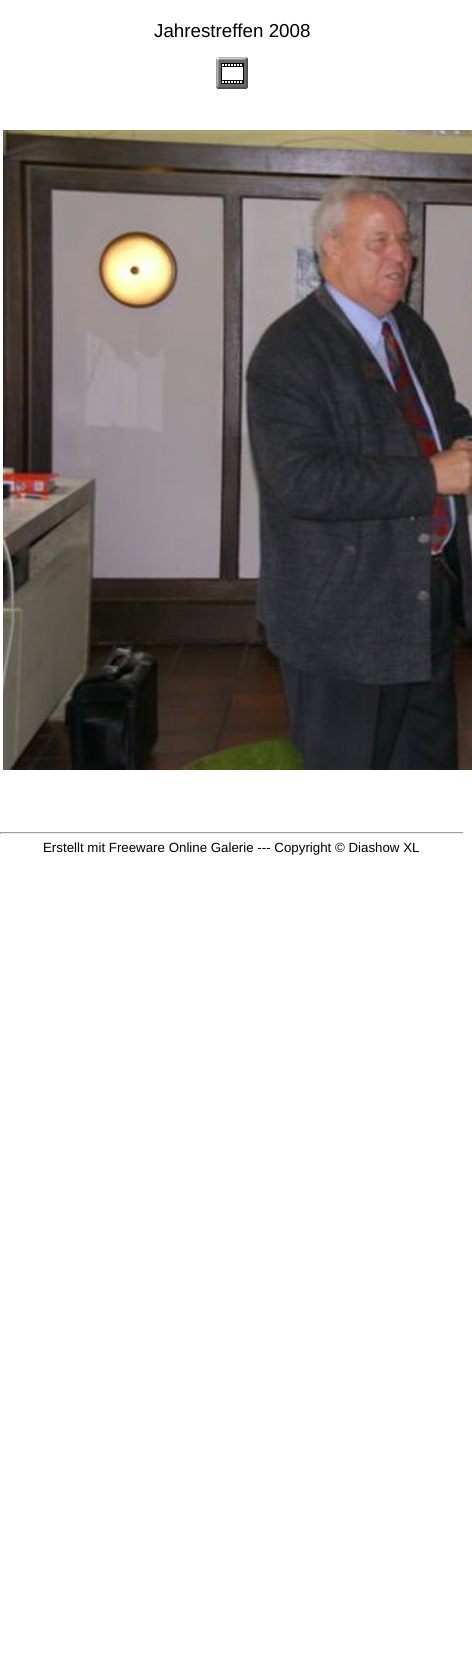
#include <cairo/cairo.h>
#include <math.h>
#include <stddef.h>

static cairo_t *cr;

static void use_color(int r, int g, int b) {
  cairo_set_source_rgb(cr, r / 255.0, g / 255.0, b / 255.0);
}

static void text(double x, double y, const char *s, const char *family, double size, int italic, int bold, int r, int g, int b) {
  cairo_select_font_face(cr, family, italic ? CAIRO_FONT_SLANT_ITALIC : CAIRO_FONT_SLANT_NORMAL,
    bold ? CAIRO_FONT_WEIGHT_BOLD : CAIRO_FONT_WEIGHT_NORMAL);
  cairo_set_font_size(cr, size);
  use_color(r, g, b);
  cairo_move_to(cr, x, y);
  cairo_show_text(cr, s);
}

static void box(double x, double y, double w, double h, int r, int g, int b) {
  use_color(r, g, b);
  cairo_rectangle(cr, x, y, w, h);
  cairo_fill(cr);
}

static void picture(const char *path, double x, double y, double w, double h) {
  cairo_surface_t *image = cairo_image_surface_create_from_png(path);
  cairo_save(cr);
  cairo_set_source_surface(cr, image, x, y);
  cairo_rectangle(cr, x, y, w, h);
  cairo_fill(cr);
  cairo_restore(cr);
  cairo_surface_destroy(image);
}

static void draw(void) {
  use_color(255, 255, 255);
  cairo_paint(cr);
  picture("img_01.png", 216, 57, 32, 32);
  picture("img_02.png", 3, 130, 469, 640);
  box(0, 832, 464, 1, 159, 159, 159);
  box(463, 832, 1, 2, 238, 238, 238);
  box(0, 833, 464, 1, 238, 238, 238);
  box(0, 832, 1, 2, 159, 159, 159);
  text(154, 37, "Jahrestreffen 2008", "Liberation Sans", 18.75, 0, 0, 0, 0, 0);
  text(43, 852, "Erstellt mit Freeware Online Galerie --- Copyright © Diashow XL", "Liberation Sans", 13.3, 0, 0, 0, 0, 0);
}

int main(void) {
  cairo_surface_t *surface = cairo_image_surface_create(CAIRO_FORMAT_RGB24, 472, 1668);
  cr = cairo_create(surface);
  cairo_font_options_t *options = cairo_font_options_create();
  cairo_font_options_set_hint_metrics(options, CAIRO_HINT_METRICS_OFF);
  cairo_font_options_set_hint_style(options, CAIRO_HINT_STYLE_NONE);
  cairo_set_font_options(cr, options);
  cairo_set_miter_limit(cr, 4);
  draw();
  cairo_surface_write_to_png(surface, "out.png");
  cairo_font_options_destroy(options);
  cairo_destroy(cr);
  cairo_surface_destroy(surface);
  return 0;
}
